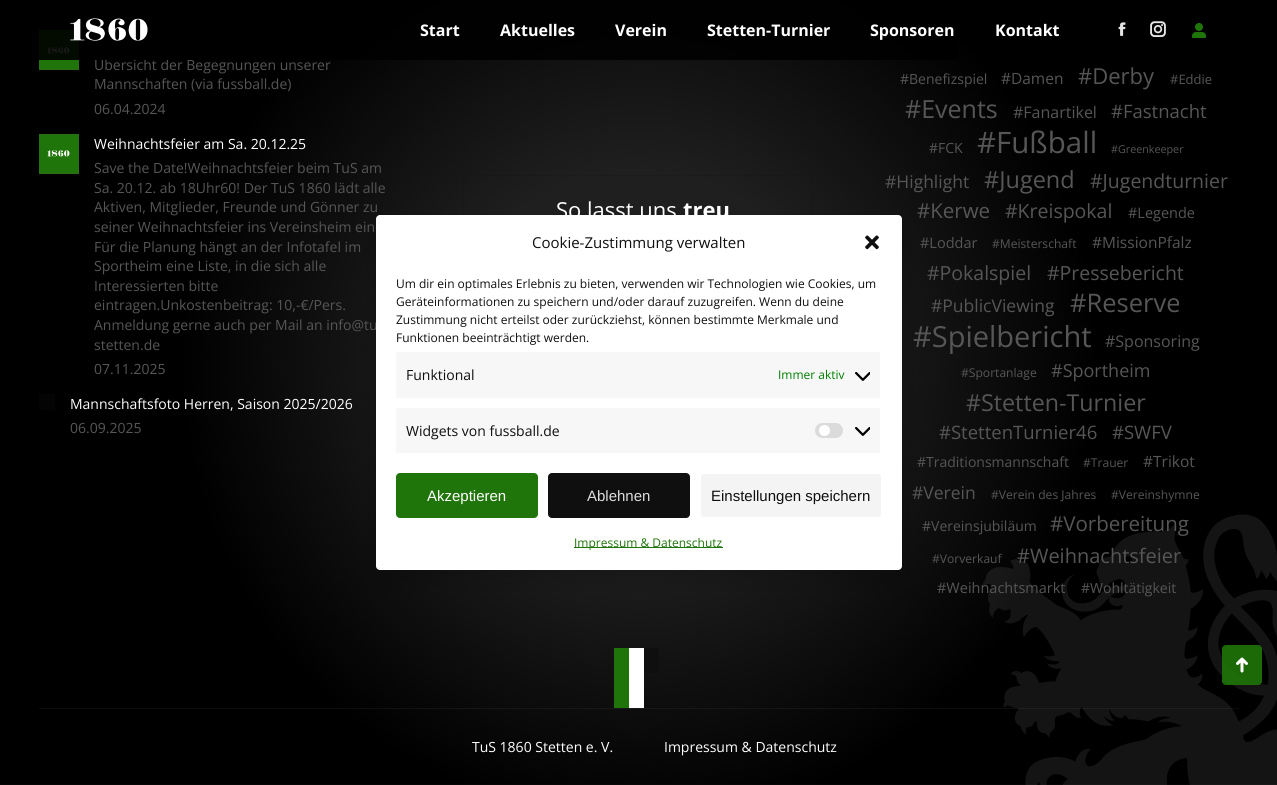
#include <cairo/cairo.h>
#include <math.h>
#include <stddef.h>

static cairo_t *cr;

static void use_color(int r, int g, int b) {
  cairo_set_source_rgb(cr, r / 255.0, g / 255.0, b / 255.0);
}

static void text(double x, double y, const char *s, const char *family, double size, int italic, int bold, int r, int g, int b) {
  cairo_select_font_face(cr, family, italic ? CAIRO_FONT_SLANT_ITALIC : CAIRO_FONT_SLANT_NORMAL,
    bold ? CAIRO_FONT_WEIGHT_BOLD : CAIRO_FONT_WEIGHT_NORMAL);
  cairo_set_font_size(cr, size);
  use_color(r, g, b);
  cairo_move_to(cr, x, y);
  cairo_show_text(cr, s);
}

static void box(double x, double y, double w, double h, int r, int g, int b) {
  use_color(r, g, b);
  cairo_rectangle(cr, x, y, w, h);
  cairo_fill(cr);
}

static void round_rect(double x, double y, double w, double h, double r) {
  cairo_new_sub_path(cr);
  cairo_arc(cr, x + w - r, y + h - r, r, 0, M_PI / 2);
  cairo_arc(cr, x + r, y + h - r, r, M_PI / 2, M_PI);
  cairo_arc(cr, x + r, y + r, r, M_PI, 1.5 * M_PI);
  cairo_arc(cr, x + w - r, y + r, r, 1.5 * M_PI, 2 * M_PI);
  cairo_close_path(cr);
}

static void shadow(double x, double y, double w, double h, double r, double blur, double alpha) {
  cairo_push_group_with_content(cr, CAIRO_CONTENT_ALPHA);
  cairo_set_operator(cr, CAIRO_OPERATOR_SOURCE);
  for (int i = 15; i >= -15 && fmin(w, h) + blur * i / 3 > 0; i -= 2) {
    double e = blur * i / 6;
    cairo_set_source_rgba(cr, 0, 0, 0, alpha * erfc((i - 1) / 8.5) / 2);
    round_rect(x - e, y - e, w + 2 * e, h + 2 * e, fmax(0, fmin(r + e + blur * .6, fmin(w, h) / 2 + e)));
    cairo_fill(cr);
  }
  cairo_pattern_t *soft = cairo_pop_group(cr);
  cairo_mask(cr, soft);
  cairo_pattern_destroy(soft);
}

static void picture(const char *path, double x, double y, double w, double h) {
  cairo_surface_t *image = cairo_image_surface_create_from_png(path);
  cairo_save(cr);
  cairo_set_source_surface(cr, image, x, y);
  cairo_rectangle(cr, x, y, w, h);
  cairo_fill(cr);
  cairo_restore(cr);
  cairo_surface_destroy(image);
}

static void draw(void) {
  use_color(15, 15, 15);
  cairo_paint(cr);
  picture("img_05.png", 0, 0, 1277, 785);
  picture("img_02.png", 1118, 22, 8, 14);
  picture("img_03.png", 1150, 21, 16, 16);
  picture("img_04.png", 1192, 23, 14, 15);
  box(40, 31, 38, 38, 31, 117, 10);
  picture("img_06.png", 47, 47, 23, 7);
  cairo_rectangle(cr, 39.5, 30.5, 39, 39);
  use_color(39, 112, 21);
  cairo_set_line_width(cr, 1);
  cairo_stroke(cr);
  box(40, 135, 38, 38, 31, 117, 10);
  picture("img_06.png", 47, 150, 23, 7);
  cairo_rectangle(cr, 39.5, 134.5, 39, 39);
  use_color(39, 112, 21);
  cairo_stroke(cr);
  box(39, 394, 16, 16, 4, 4, 4);
  round_rect(463.5, 175.5, 349, 276, 3.5);
  cairo_set_source_rgba(cr, 0, 0, 0, 0.1);
  cairo_stroke(cr);
  box(614, 648, 15, 60, 31, 117, 10);
  box(629, 648, 15, 60, 255, 255, 255);
  box(644, 648, 15, 25, 15, 15, 15);
  cairo_set_source_rgba(cr, 1, 1, 1, 0.05);
  cairo_rectangle(cr, 39, 708, 1200, 1);
  cairo_fill(cr);
  cairo_set_source_rgba(cr, 0.122, 0.459, 0.039, 0.9);
  round_rect(1222, 645, 40, 40, 4);
  cairo_fill(cr);
  picture("img_07.png", 1236, 657, 12, 16);
  use_color(0, 0, 0);
  shadow(376, 225, 526, 355, 4, 10, 0.19);
  text(995, 36, "Kontakt", "Open Sans", 16, 0, 1, 255, 255, 255);
  text(94, 70, "Übersicht der Begegnungen unserer", "Open Sans", 14, 0, 0, 86, 86, 86);
  cairo_set_source_rgba(cr, 0, 0, 0, 0.9);
  cairo_rectangle(cr, 39, 0, 919, 60);
  cairo_fill(cr);
  text(870, 36, "Sponsoren", "Open Sans", 16, 0, 1, 255, 255, 255);
  text(707, 36, "Stetten-Turnier", "Open Sans", 16, 0, 1, 255, 255, 255);
  text(615, 36, "Verein", "Open Sans", 16, 0, 1, 255, 255, 255);
  text(500, 36, "Aktuelles", "Open Sans", 16, 0, 1, 255, 255, 255);
  text(420, 36, "Start", "Open Sans", 16, 0, 1, 255, 255, 255);
  picture("img_01.png", 70, 18, 78, 23);
  text(94, 89, "Mannschaften (via fussball.de)", "Open Sans", 14, 0, 0, 86, 86, 86);
  text(94, 114, "06.04.2024", "Open Sans", 14, 0, 0, 86, 86, 86);
  text(94, 149, "Weihnachtsfeier am Sa. 20.12.25", "Open Sans", 14, 0, 0, 255, 255, 255);
  text(94, 173, "Save the Date!Weihnachtsfeier beim TuS am", "Open Sans", 14, 0, 0, 86, 86, 86);
  text(94, 193, "Sa. 20.12. ab 18Uhr60! Der TuS 1860 lädt alle", "Open Sans", 14, 0, 0, 86, 86, 86);
  text(94, 212, "Aktiven, Mitglieder, Freunde und Gönner zu", "Open Sans", 14, 0, 0, 86, 86, 86);
  text(94, 232, "seiner Weihnachtsfeier ins Vereinsheim ein", "Open Sans", 14, 0, 0, 86, 86, 86);
  text(94, 252, "Für die Planung hängt an der Infotafel im", "Open Sans", 14, 0, 0, 86, 86, 86);
  text(94, 271, "Sportheim eine Liste, in die sich alle", "Open Sans", 14, 0, 0, 86, 86, 86);
  text(94, 291, "Interessierten bitte", "Open Sans", 14, 0, 0, 86, 86, 86);
  text(94, 310, "eintragen.Unkostenbeitrag: 10,-€/Pers.", "Open Sans", 14, 0, 0, 86, 86, 86);
  text(94, 330, "Anmeldung gerne auch per Mail an info@tu", "Open Sans", 14, 0, 0, 86, 86, 86);
  text(94, 350, "stetten.de", "Open Sans", 14, 0, 0, 86, 86, 86);
  text(94, 374, "07.11.2025", "Open Sans", 14, 0, 0, 86, 86, 86);
  text(70, 409, "Mannschaftsfoto Herren, Saison 2025/2026", "Open Sans", 14, 0, 0, 255, 255, 255);
  text(70, 433, "06.09.2025", "Open Sans", 14, 0, 0, 86, 86, 86);
  text(556, 218, "So lasst uns", "Open Sans", 22, 0, 0, 255, 255, 255);
  text(683, 218, "treu", "Open Sans", 22, 0, 1, 255, 255, 255);
  text(900, 84, "#Benefizspiel", "Open Sans", 14, 0, 0, 86, 86, 86);
  text(1001, 84, "#Damen", "Open Sans", 15.5, 0, 0, 86, 86, 86);
  text(1078, 84, "#Derby", "Open Sans", 22, 0, 0, 86, 86, 86);
  text(1170, 84, "#Eddie", "Open Sans", 13, 0, 0, 86, 86, 86);
  text(905, 118, "#Events", "Open Sans", 25, 0, 0, 86, 86, 86);
  text(1013, 118, "#Fanartikel", "Open Sans", 16, 0, 0, 86, 86, 86);
  text(1111, 118, "#Fastnacht", "Open Sans", 18.5, 0, 0, 86, 86, 86);
  text(929, 153, "#FCK", "Open Sans", 14, 0, 0, 86, 86, 86);
  text(977, 153, "#Fußball", "Open Sans", 29.5, 0, 0, 86, 86, 86);
  text(1111, 153, "#Greenkeeper", "Open Sans", 10.75, 0, 0, 86, 86, 86);
  text(885, 188, "#Highlight", "Open Sans", 17.5, 0, 0, 86, 86, 86);
  text(984, 188, "#Jugend", "Open Sans", 23.5, 0, 0, 86, 86, 86);
  text(1090, 188, "#Jugendturnier", "Open Sans", 19.5, 0, 0, 86, 86, 86);
  text(917, 218, "#Kerwe", "Open Sans", 20.5, 0, 0, 86, 86, 86);
  text(1005, 218, "#Kreispokal", "Open Sans", 19.5, 0, 0, 86, 86, 86);
  text(1128, 218, "#Legende", "Open Sans", 14.5, 0, 0, 86, 86, 86);
  text(920, 248, "#Loddar", "Open Sans", 14.5, 0, 0, 86, 86, 86);
  text(992, 248, "#Meisterschaft", "Open Sans", 12.1, 0, 0, 86, 86, 86);
  text(1092, 248, "#MissionPfalz", "Open Sans", 15.5, 0, 0, 86, 86, 86);
  text(927, 280, "#Pokalspiel", "Open Sans", 19.5, 0, 0, 86, 86, 86);
  text(1047, 280, "#Pressebericht", "Open Sans", 19.5, 0, 0, 86, 86, 86);
  text(931, 312, "#PublicViewing", "Open Sans", 17.5, 0, 0, 86, 86, 86);
  text(1070, 312, "#Reserve", "Open Sans", 25.5, 0, 0, 86, 86, 86);
  text(913, 347, "#Spielbericht", "Open Sans", 29, 0, 0, 86, 86, 86);
  text(1105, 347, "#Sponsoring", "Open Sans", 16, 0, 0, 86, 86, 86);
  text(961, 377, "#Sportanlage", "Open Sans", 12.1, 0, 0, 86, 86, 86);
  text(1051, 377, "#Sportheim", "Open Sans", 18, 0, 0, 86, 86, 86);
  text(966, 411, "#Stetten-Turnier", "Open Sans", 23.25, 0, 0, 86, 86, 86);
  text(939, 439, "#StettenTurnier46", "Open Sans", 18.5, 0, 0, 86, 86, 86);
  text(1112, 439, "#SWFV", "Open Sans", 18.5, 0, 0, 86, 86, 86);
  text(917, 467, "#Traditionsmannschaft", "Open Sans", 14, 0, 0, 86, 86, 86);
  text(1083, 467, "#Trauer", "Open Sans", 12.1, 0, 0, 86, 86, 86);
  text(1143, 467, "#Trikot", "Open Sans", 15.5, 0, 0, 86, 86, 86);
  text(912, 499, "#Verein", "Open Sans", 17.5, 0, 0, 86, 86, 86);
  text(991, 499, "#Verein des Jahres", "Open Sans", 12.1, 0, 0, 86, 86, 86);
  text(1111, 499, "#Vereinshymne", "Open Sans", 12.1, 0, 0, 86, 86, 86);
  text(922, 531, "#Vereinsjubiläum", "Open Sans", 14, 0, 0, 86, 86, 86);
  text(1050, 531, "#Vorbereitung", "Open Sans", 20.5, 0, 0, 86, 86, 86);
  text(932, 563, "#Vorverkauf", "Open Sans", 12.1, 0, 0, 86, 86, 86);
  text(1017, 563, "#Weihnachtsfeier", "Open Sans", 20, 0, 0, 86, 86, 86);
  text(937, 593, "#Weihnachtsmarkt", "Open Sans", 14.5, 0, 0, 86, 86, 86);
  text(1081, 593, "#Wohltätigkeit", "Open Sans", 14, 0, 0, 86, 86, 86);
  text(472, 752, "TuS 1860 Stetten e. V.", "Open Sans", 14, 0, 0, 255, 255, 255);
  text(664, 752, "Impressum & Datenschutz", "Open Sans", 14, 0, 0, 255, 255, 255);
  round_rect(376, 215, 526, 355, 4);
  cairo_fill(cr);
  text(532, 248, "Cookie-Zustimmung verwalten", "Open Sans", 15, 0, 0, 15, 15, 15);
  picture("img_08.png", 865, 235, 14, 15);
  text(396, 288, "Um dir ein optimales Erlebnis zu bieten, verwenden wir Technologien wie Cookies, um", "Open Sans", 12, 0, 0, 15, 15, 15);
  text(396, 306, "Geräteinformationen zu speichern und/oder darauf zuzugreifen. Wenn du deine", "Open Sans", 12, 0, 0, 15, 15, 15);
  text(396, 324, "Zustimmung nicht erteilst oder zurückziehst, können bestimmte Merkmale und", "Open Sans", 12, 0, 0, 15, 15, 15);
  text(396, 342, "Funktionen beeinträchtigt werden.", "Open Sans", 12, 0, 0, 15, 15, 15);
  box(396, 352, 484, 46, 247, 247, 247);
  text(406, 380, "Funktional", "Open Sans", 14, 0, 0, 15, 15, 15);
  text(778, 379, "Immer aktiv", "Open Sans", 12, 0, 0, 0, 128, 0);
  picture("img_09.png", 855, 372, 15, 9);
  box(396, 408, 484, 45, 247, 247, 247);
  text(406, 436, "Widgets von fussball.de", "Open Sans", 14, 0, 0, 15, 15, 15);
  use_color(219, 219, 219);
  round_rect(815, 423, 28, 15, 7.5);
  cairo_fill(cr);
  use_color(255, 255, 255);
  cairo_arc(cr, 824.5, 430.5, 5.5, 0, 2 * M_PI);
  cairo_fill(cr);
  picture("img_09.png", 855, 427, 15, 9);
  use_color(31, 117, 10);
  round_rect(396.5, 473.5, 141, 44, 3.5);
  cairo_fill_preserve(cr);
  cairo_stroke(cr);
  text(427, 501, "Akzeptieren", "Liberation Sans", 15, 0, 0, 255, 255, 255);
  use_color(15, 15, 15);
  round_rect(548.5, 473.5, 141, 44, 3.5);
  cairo_fill_preserve(cr);
  cairo_stroke(cr);
  text(587, 501, "Ablehnen", "Liberation Sans", 15, 0, 0, 221, 221, 221);
  use_color(244, 244, 244);
  round_rect(700.5, 473.5, 181, 44, 3.5);
  cairo_fill_preserve(cr);
  use_color(255, 255, 255);
  cairo_stroke(cr);
  text(711, 501, "Einstellungen speichern", "Liberation Sans", 15, 0, 0, 15, 15, 15);
  box(574, 547, 149, 1, 31, 117, 10);
  text(574, 547, "Impressum & Datenschutz", "Open Sans", 12, 0, 0, 31, 117, 10);
}

int main(void) {
  cairo_surface_t *surface = cairo_image_surface_create(CAIRO_FORMAT_RGB24, 1277, 785);
  cr = cairo_create(surface);
  cairo_font_options_t *options = cairo_font_options_create();
  cairo_font_options_set_hint_metrics(options, CAIRO_HINT_METRICS_OFF);
  cairo_font_options_set_hint_style(options, CAIRO_HINT_STYLE_NONE);
  cairo_set_font_options(cr, options);
  cairo_set_miter_limit(cr, 4);
  draw();
  cairo_surface_write_to_png(surface, "out.png");
  cairo_font_options_destroy(options);
  cairo_destroy(cr);
  cairo_surface_destroy(surface);
  return 0;
}
